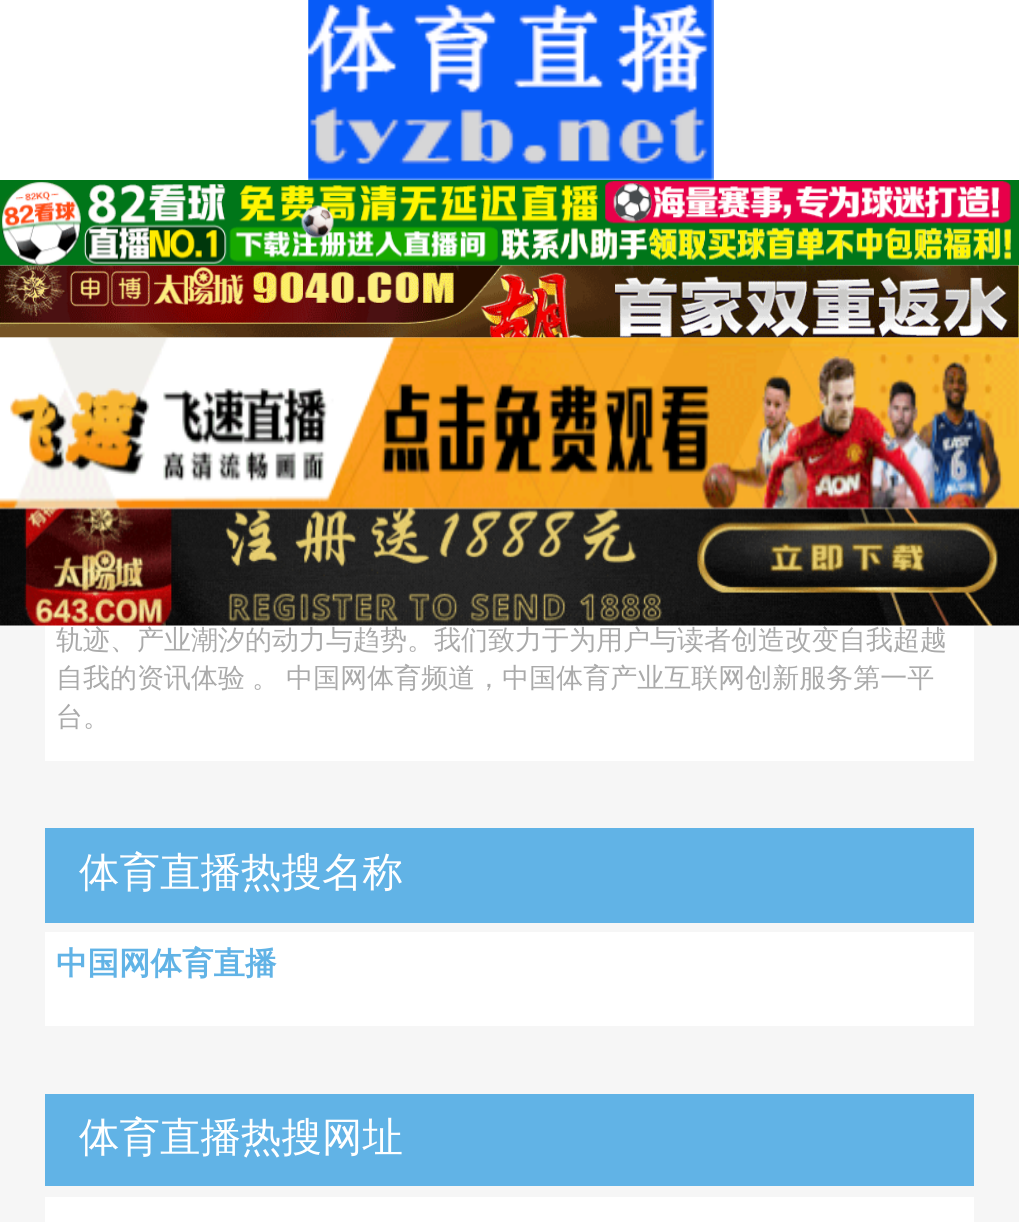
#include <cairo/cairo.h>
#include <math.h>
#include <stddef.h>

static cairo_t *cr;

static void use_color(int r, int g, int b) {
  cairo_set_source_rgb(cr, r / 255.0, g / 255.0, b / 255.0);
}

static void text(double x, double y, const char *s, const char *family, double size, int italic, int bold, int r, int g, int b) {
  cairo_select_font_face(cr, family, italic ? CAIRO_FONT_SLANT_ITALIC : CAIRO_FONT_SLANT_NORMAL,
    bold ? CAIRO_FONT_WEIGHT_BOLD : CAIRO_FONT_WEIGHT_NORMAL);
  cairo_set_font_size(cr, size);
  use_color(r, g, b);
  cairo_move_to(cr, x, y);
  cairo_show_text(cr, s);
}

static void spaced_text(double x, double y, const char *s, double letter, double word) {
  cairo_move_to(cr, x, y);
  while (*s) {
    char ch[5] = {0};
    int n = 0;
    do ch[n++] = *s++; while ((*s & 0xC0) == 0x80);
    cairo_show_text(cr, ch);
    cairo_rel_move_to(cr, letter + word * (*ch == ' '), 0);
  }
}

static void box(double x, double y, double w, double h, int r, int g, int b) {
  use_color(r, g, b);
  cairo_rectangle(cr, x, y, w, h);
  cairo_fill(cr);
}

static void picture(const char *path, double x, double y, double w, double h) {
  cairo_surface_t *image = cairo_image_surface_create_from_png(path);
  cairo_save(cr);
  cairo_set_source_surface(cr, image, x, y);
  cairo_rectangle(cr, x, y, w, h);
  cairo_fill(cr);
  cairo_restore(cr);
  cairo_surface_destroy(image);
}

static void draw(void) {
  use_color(246, 246, 246);
  cairo_paint(cr);
  box(0, 0, 1019, 626, 255, 255, 255);
  picture("img_01.png", 308, 0, 406, 180);
  picture("img_02.png", 0, 180, 1019, 86);
  picture("img_03.png", 0, 265, 1019, 73);
  picture("img_04.png", 0, 337, 1019, 172);
  picture("img_05.png", 0, 507, 1019, 119);
  box(45, 626, 929, 135, 255, 255, 255);
  box(45, 828, 929, 95, 97, 179, 230);
  box(45, 932, 929, 94, 255, 255, 255);
  box(45, 1094, 929, 92, 97, 179, 230);
  box(45, 1197, 929, 25, 255, 255, 255);
  text(56, 649, "轨迹、产业潮汐的动力与趋势。我们致力于为用户与读者创造改变自我超越", "WenQuanYi Zen Hei Medium", 27, 0, 0, 170, 170, 170);
  spaced_text(56, 687, "自我的资讯体验 。 中国网体育频道，中国体育产业互联网创新服务第一平", 0, -1);
  text(56, 726, "台。", "WenQuanYi Zen Hei Medium", 27, 0, 0, 170, 170, 170);
  text(79, 886, "体育直播热搜名称", "WenQuanYi Zen Hei Medium", 40.5, 0, 0, 255, 255, 255);
  text(56, 974, "中国网体育直播", "WenQuanYi Zen Hei", 31.5, 0, 1, 97, 179, 230);
  text(79, 1151, "体育直播热搜网址", "WenQuanYi Zen Hei Medium", 40.5, 0, 0, 255, 255, 255);
}

int main(void) {
  cairo_surface_t *surface = cairo_image_surface_create(CAIRO_FORMAT_RGB24, 1019, 1222);
  cr = cairo_create(surface);
  cairo_font_options_t *options = cairo_font_options_create();
  cairo_font_options_set_hint_metrics(options, CAIRO_HINT_METRICS_OFF);
  cairo_font_options_set_hint_style(options, CAIRO_HINT_STYLE_NONE);
  cairo_set_font_options(cr, options);
  cairo_set_miter_limit(cr, 4);
  draw();
  cairo_surface_write_to_png(surface, "out.png");
  cairo_font_options_destroy(options);
  cairo_destroy(cr);
  cairo_surface_destroy(surface);
  return 0;
}
